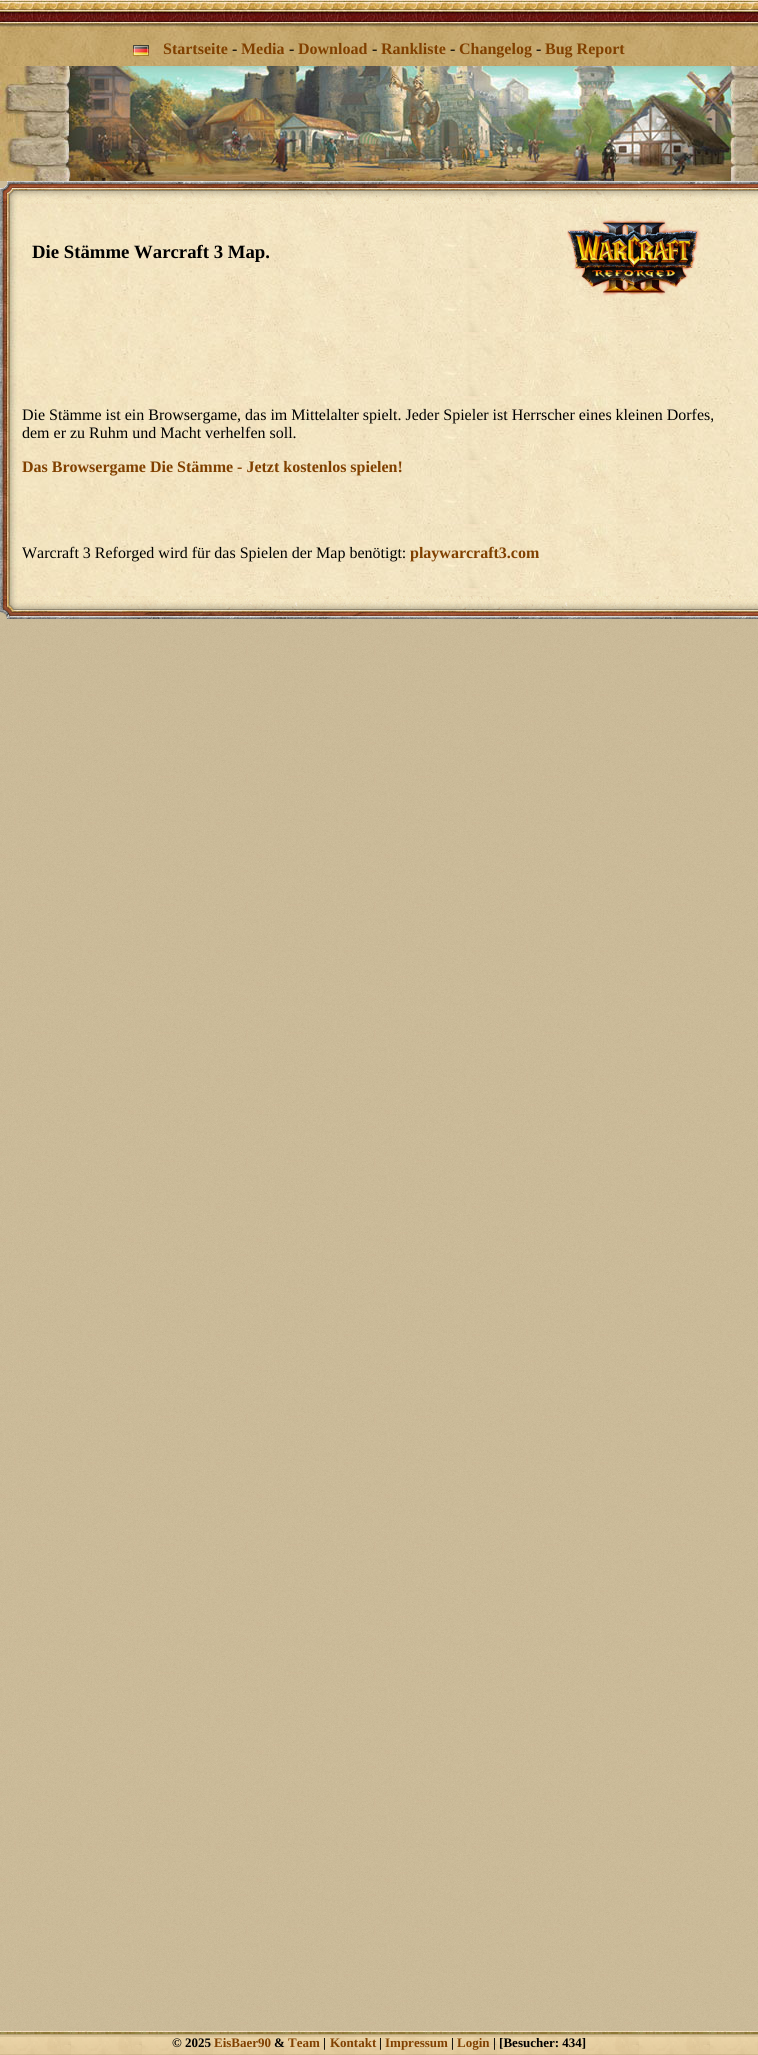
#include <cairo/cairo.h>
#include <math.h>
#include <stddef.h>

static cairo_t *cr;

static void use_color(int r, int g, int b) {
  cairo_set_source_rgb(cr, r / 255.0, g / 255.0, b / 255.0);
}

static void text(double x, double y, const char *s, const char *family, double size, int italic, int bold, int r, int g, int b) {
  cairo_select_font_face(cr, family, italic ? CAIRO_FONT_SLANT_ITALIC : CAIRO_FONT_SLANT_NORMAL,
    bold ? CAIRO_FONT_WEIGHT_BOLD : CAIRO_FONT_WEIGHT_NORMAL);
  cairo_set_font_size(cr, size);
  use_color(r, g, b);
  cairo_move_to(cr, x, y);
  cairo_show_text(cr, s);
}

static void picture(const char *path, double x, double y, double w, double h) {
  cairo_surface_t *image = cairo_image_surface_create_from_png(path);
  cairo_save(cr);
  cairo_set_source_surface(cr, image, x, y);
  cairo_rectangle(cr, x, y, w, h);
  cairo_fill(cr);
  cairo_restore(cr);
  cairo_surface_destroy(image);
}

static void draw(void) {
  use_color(255, 255, 255);
  cairo_paint(cr);
  picture("img_01.png", 0, 619, 758, 1412);
  picture("img_02.png", 0, 0, 758, 66);
  picture("img_03.png", 133, 45, 16, 11);
  picture("img_04.png", 0, 66, 758, 115);
  picture("img_05.png", 0, 181, 758, 23);
  picture("img_06.png", 0, 204, 758, 392);
  picture("img_07.png", 566, 219, 135, 77);
  picture("img_08.png", 0, 596, 758, 23);
  picture("img_09.png", 0, 2031, 758, 24);
  text(163, 54, "Startseite", "Liberation Serif", 16, 0, 1, 128, 64, 0);
  text(232, 54, "-", "Liberation Serif", 16, 0, 0, 0, 0, 0);
  text(241, 54, "Media", "Liberation Serif", 16, 0, 1, 128, 64, 0);
  text(289, 54, "-", "Liberation Serif", 16, 0, 0, 0, 0, 0);
  text(298, 54, "Download", "Liberation Serif", 16, 0, 1, 128, 64, 0);
  text(372, 54, "-", "Liberation Serif", 16, 0, 0, 0, 0, 0);
  text(381, 54, "Rankliste", "Liberation Serif", 16, 0, 1, 128, 64, 0);
  text(450, 54, "-", "Liberation Serif", 16, 0, 0, 0, 0, 0);
  text(459, 54, "Changelog", "Liberation Serif", 16, 0, 1, 128, 64, 0);
  text(536, 54, "-", "Liberation Serif", 16, 0, 0, 0, 0, 0);
  text(545, 54, "Bug Report", "Liberation Serif", 16, 0, 1, 128, 64, 0);
  text(32, 258, "Die Stämme Warcraft 3 Map.", "Liberation Serif", 18.75, 0, 1, 0, 0, 0);
  text(22, 420, "Die Stämme ist ein Browsergame, das im Mittelalter spielt. Jeder Spieler ist Herrscher eines kleinen Dorfes,", "Liberation Serif", 16, 0, 0, 0, 0, 0);
  text(22, 438, "dem er zu Ruhm und Macht verhelfen soll.", "Liberation Serif", 16, 0, 0, 0, 0, 0);
  text(22, 472, "Das Browsergame Die Stämme - Jetzt kostenlos spielen!", "Liberation Serif", 16, 0, 1, 128, 64, 0);
  text(22, 558, "Warcraft 3 Reforged wird für das Spielen der Map benötigt:", "Liberation Serif", 16, 0, 0, 0, 0, 0);
  text(410, 558, "playwarcraft3.com", "Liberation Serif", 16, 0, 1, 128, 64, 0);
  text(172, 2047, "© 2025", "Liberation Serif", 13, 0, 1, 0, 0, 0);
  text(214, 2047, "EisBaer90", "Liberation Serif", 13, 0, 1, 128, 64, 0);
  text(274, 2047, "&", "Liberation Serif", 13, 0, 1, 0, 0, 0);
  text(288, 2047, "Team", "Liberation Serif", 13, 0, 1, 128, 64, 0);
  text(323, 2047, "|", "Liberation Serif", 13, 0, 1, 0, 0, 0);
  text(330, 2047, "Kontakt", "Liberation Serif", 13, 0, 1, 128, 64, 0);
  text(379, 2047, "|", "Liberation Serif", 13, 0, 1, 0, 0, 0);
  text(385, 2047, "Impressum", "Liberation Serif", 13, 0, 1, 128, 64, 0);
  text(451, 2047, "|", "Liberation Serif", 13, 0, 1, 0, 0, 0);
  text(457, 2047, "Login", "Liberation Serif", 13, 0, 1, 128, 64, 0);
  text(493, 2047, "| [Besucher: 434]", "Liberation Serif", 13, 0, 1, 0, 0, 0);
}

int main(void) {
  cairo_surface_t *surface = cairo_image_surface_create(CAIRO_FORMAT_RGB24, 758, 2055);
  cr = cairo_create(surface);
  cairo_font_options_t *options = cairo_font_options_create();
  cairo_font_options_set_hint_metrics(options, CAIRO_HINT_METRICS_OFF);
  cairo_font_options_set_hint_style(options, CAIRO_HINT_STYLE_NONE);
  cairo_set_font_options(cr, options);
  cairo_set_miter_limit(cr, 4);
  draw();
  cairo_surface_write_to_png(surface, "out.png");
  cairo_font_options_destroy(options);
  cairo_destroy(cr);
  cairo_surface_destroy(surface);
  return 0;
}
